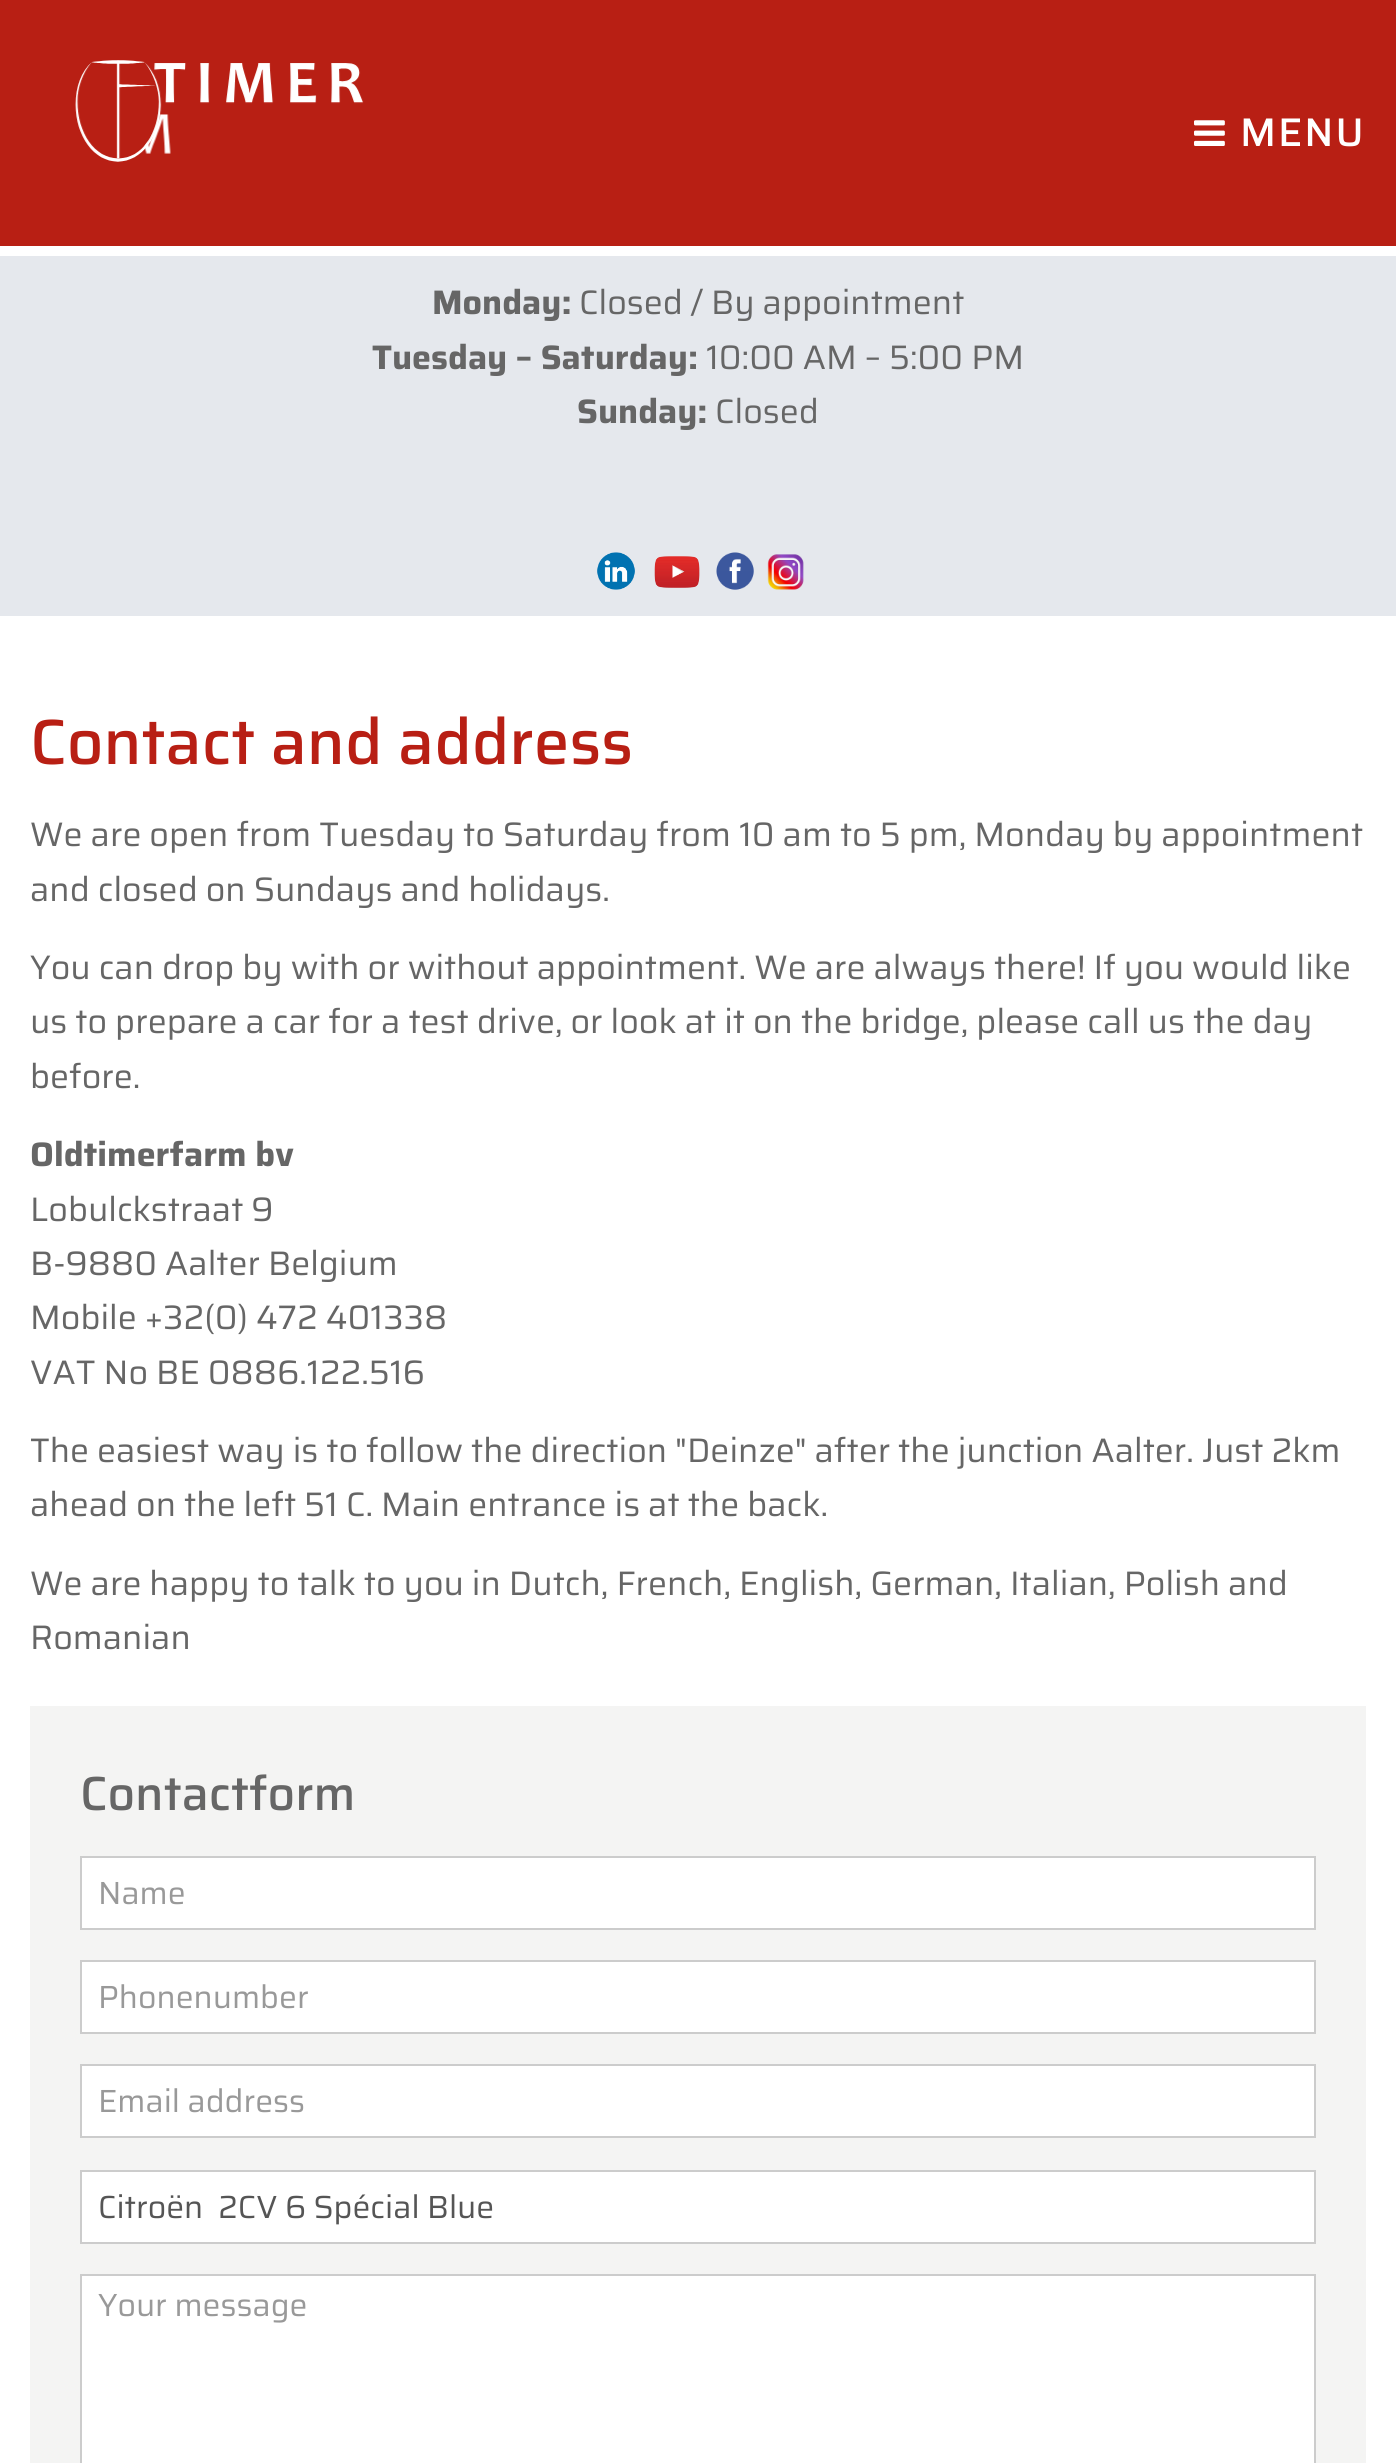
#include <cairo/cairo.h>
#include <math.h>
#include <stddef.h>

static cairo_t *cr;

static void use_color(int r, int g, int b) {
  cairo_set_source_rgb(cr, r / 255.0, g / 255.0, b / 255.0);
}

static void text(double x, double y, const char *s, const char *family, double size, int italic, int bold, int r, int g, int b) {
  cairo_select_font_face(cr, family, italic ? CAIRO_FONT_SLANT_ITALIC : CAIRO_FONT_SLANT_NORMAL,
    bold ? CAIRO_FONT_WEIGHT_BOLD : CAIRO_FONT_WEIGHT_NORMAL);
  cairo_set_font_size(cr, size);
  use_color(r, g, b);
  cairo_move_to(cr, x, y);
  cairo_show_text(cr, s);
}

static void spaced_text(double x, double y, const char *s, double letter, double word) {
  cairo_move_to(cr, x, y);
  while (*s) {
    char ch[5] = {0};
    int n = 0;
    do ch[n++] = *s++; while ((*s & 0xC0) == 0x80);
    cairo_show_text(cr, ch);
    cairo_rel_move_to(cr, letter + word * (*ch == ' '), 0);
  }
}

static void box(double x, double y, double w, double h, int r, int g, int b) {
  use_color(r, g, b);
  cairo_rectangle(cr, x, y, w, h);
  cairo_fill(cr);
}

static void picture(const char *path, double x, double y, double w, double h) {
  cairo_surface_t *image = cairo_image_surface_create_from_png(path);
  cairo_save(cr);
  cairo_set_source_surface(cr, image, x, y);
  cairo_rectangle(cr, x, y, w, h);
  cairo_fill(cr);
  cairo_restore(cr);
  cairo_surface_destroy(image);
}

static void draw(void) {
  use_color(255, 255, 255);
  cairo_paint(cr);
  box(0, 0, 1396, 246, 184, 31, 20);
  picture("img_01.png", 75, 60, 289, 102);
  picture("img_02.png", 1194, 120, 31, 26);
  box(0, 256, 1396, 360, 229, 232, 237);
  picture("img_03.png", 597, 552, 38, 38);
  picture("img_04.png", 654, 556, 46, 32);
  picture("img_05.png", 716, 552, 38, 38);
  picture("img_06.png", 767, 554, 37, 36);
  box(30, 1706, 1336, 757, 244, 244, 243);
  use_color(255, 255, 255);
  cairo_rectangle(cr, 81, 1857, 1234, 72);
  cairo_fill_preserve(cr);
  use_color(204, 204, 204);
  cairo_stroke(cr);
  use_color(255, 255, 255);
  cairo_rectangle(cr, 81, 1961, 1234, 72);
  cairo_fill_preserve(cr);
  use_color(204, 204, 204);
  cairo_stroke(cr);
  use_color(255, 255, 255);
  cairo_rectangle(cr, 81, 2065, 1234, 72);
  cairo_fill_preserve(cr);
  use_color(204, 204, 204);
  cairo_stroke(cr);
  use_color(255, 255, 255);
  cairo_rectangle(cr, 81, 2171, 1234, 72);
  cairo_fill_preserve(cr);
  use_color(204, 204, 204);
  cairo_stroke(cr);
  use_color(255, 255, 255);
  cairo_rectangle(cr, 81, 2275, 1234, 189);
  cairo_fill_preserve(cr);
  use_color(204, 204, 204);
  cairo_stroke(cr);
  cairo_select_font_face(cr, "Saira Medium", CAIRO_FONT_SLANT_NORMAL, CAIRO_FONT_WEIGHT_NORMAL);
  cairo_set_font_size(cr, 40);
  use_color(255, 255, 255);
  spaced_text(1240, 146, "MENU", 2, 0);
  text(432, 314, "Monday:", "Saira", 34, 0, 1, 102, 102, 102);
  text(579, 314, "Closed / By appointment", "Saira", 34, 0, 0, 102, 102, 102);
  text(372, 369, "Tuesday – Saturday:", "Saira", 34, 0, 1, 102, 102, 102);
  text(706, 369, "10:00 AM – 5:00 PM", "Saira", 34, 0, 0, 102, 102, 102);
  text(577, 423, "Sunday:", "Saira", 34, 0, 1, 102, 102, 102);
  text(715, 423, "Closed", "Saira", 34, 0, 0, 102, 102, 102);
  text(30, 764, "Contact and address", "Saira Medium", 64, 0, 0, 184, 31, 20);
  text(30, 846, "We are open from Tuesday to Saturday from 10 am to 5 pm, Monday by appointment", "Saira", 34, 0, 0, 102, 102, 102);
  text(30, 901, "and closed on Sundays and holidays.", "Saira", 34, 0, 0, 102, 102, 102);
  text(30, 979, "You can drop by with or without appointment. We are always there! If you would like", "Saira", 34, 0, 0, 102, 102, 102);
  text(30, 1033, "us to prepare a car for a test drive, or look at it on the bridge, please call us the day", "Saira", 34, 0, 0, 102, 102, 102);
  text(30, 1088, "before.", "Saira", 34, 0, 0, 102, 102, 102);
  text(30, 1166, "Oldtimerfarm bv", "Saira", 34, 0, 1, 102, 102, 102);
  text(30, 1221, "Lobulckstraat 9", "Saira", 34, 0, 0, 102, 102, 102);
  text(30, 1275, "B-9880 Aalter Belgium", "Saira", 34, 0, 0, 102, 102, 102);
  text(30, 1329, "Mobile +32(0) 472 401338", "Saira", 34, 0, 0, 102, 102, 102);
  text(30, 1384, "VAT No BE 0886.122.516", "Saira", 34, 0, 0, 102, 102, 102);
  text(30, 1462, "The easiest way is to follow the direction \"Deinze\" after the junction Aalter. Just 2km", "Saira", 34, 0, 0, 102, 102, 102);
  text(30, 1516, "ahead on the left 51 C. Main entrance is at the back.", "Saira", 34, 0, 0, 102, 102, 102);
  text(30, 1595, "We are happy to talk to you in Dutch, French, English, German, Italian, Polish and", "Saira", 34, 0, 0, 102, 102, 102);
  text(30, 1649, "Romanian", "Saira", 34, 0, 0, 102, 102, 102);
  text(80, 1810, "Contactform", "Saira Medium", 48, 0, 0, 102, 102, 102);
  text(98, 1904, "Name", "Saira", 32, 0, 0, 153, 153, 153);
  text(98, 2008, "Phonenumber", "Saira", 32, 0, 0, 153, 153, 153);
  text(98, 2112, "Email address", "Saira", 32, 0, 0, 153, 153, 153);
  text(98, 2218, "Citroën  2CV 6 Spécial Blue", "Saira", 32, 0, 0, 85, 85, 85);
  text(98, 2316, "Your message", "Saira", 32, 0, 0, 153, 153, 153);
}

int main(void) {
  cairo_surface_t *surface = cairo_image_surface_create(CAIRO_FORMAT_RGB24, 1396, 2463);
  cr = cairo_create(surface);
  cairo_font_options_t *options = cairo_font_options_create();
  cairo_font_options_set_hint_metrics(options, CAIRO_HINT_METRICS_OFF);
  cairo_font_options_set_hint_style(options, CAIRO_HINT_STYLE_NONE);
  cairo_set_font_options(cr, options);
  cairo_set_miter_limit(cr, 4);
  draw();
  cairo_surface_write_to_png(surface, "out.png");
  cairo_font_options_destroy(options);
  cairo_destroy(cr);
  cairo_surface_destroy(surface);
  return 0;
}
